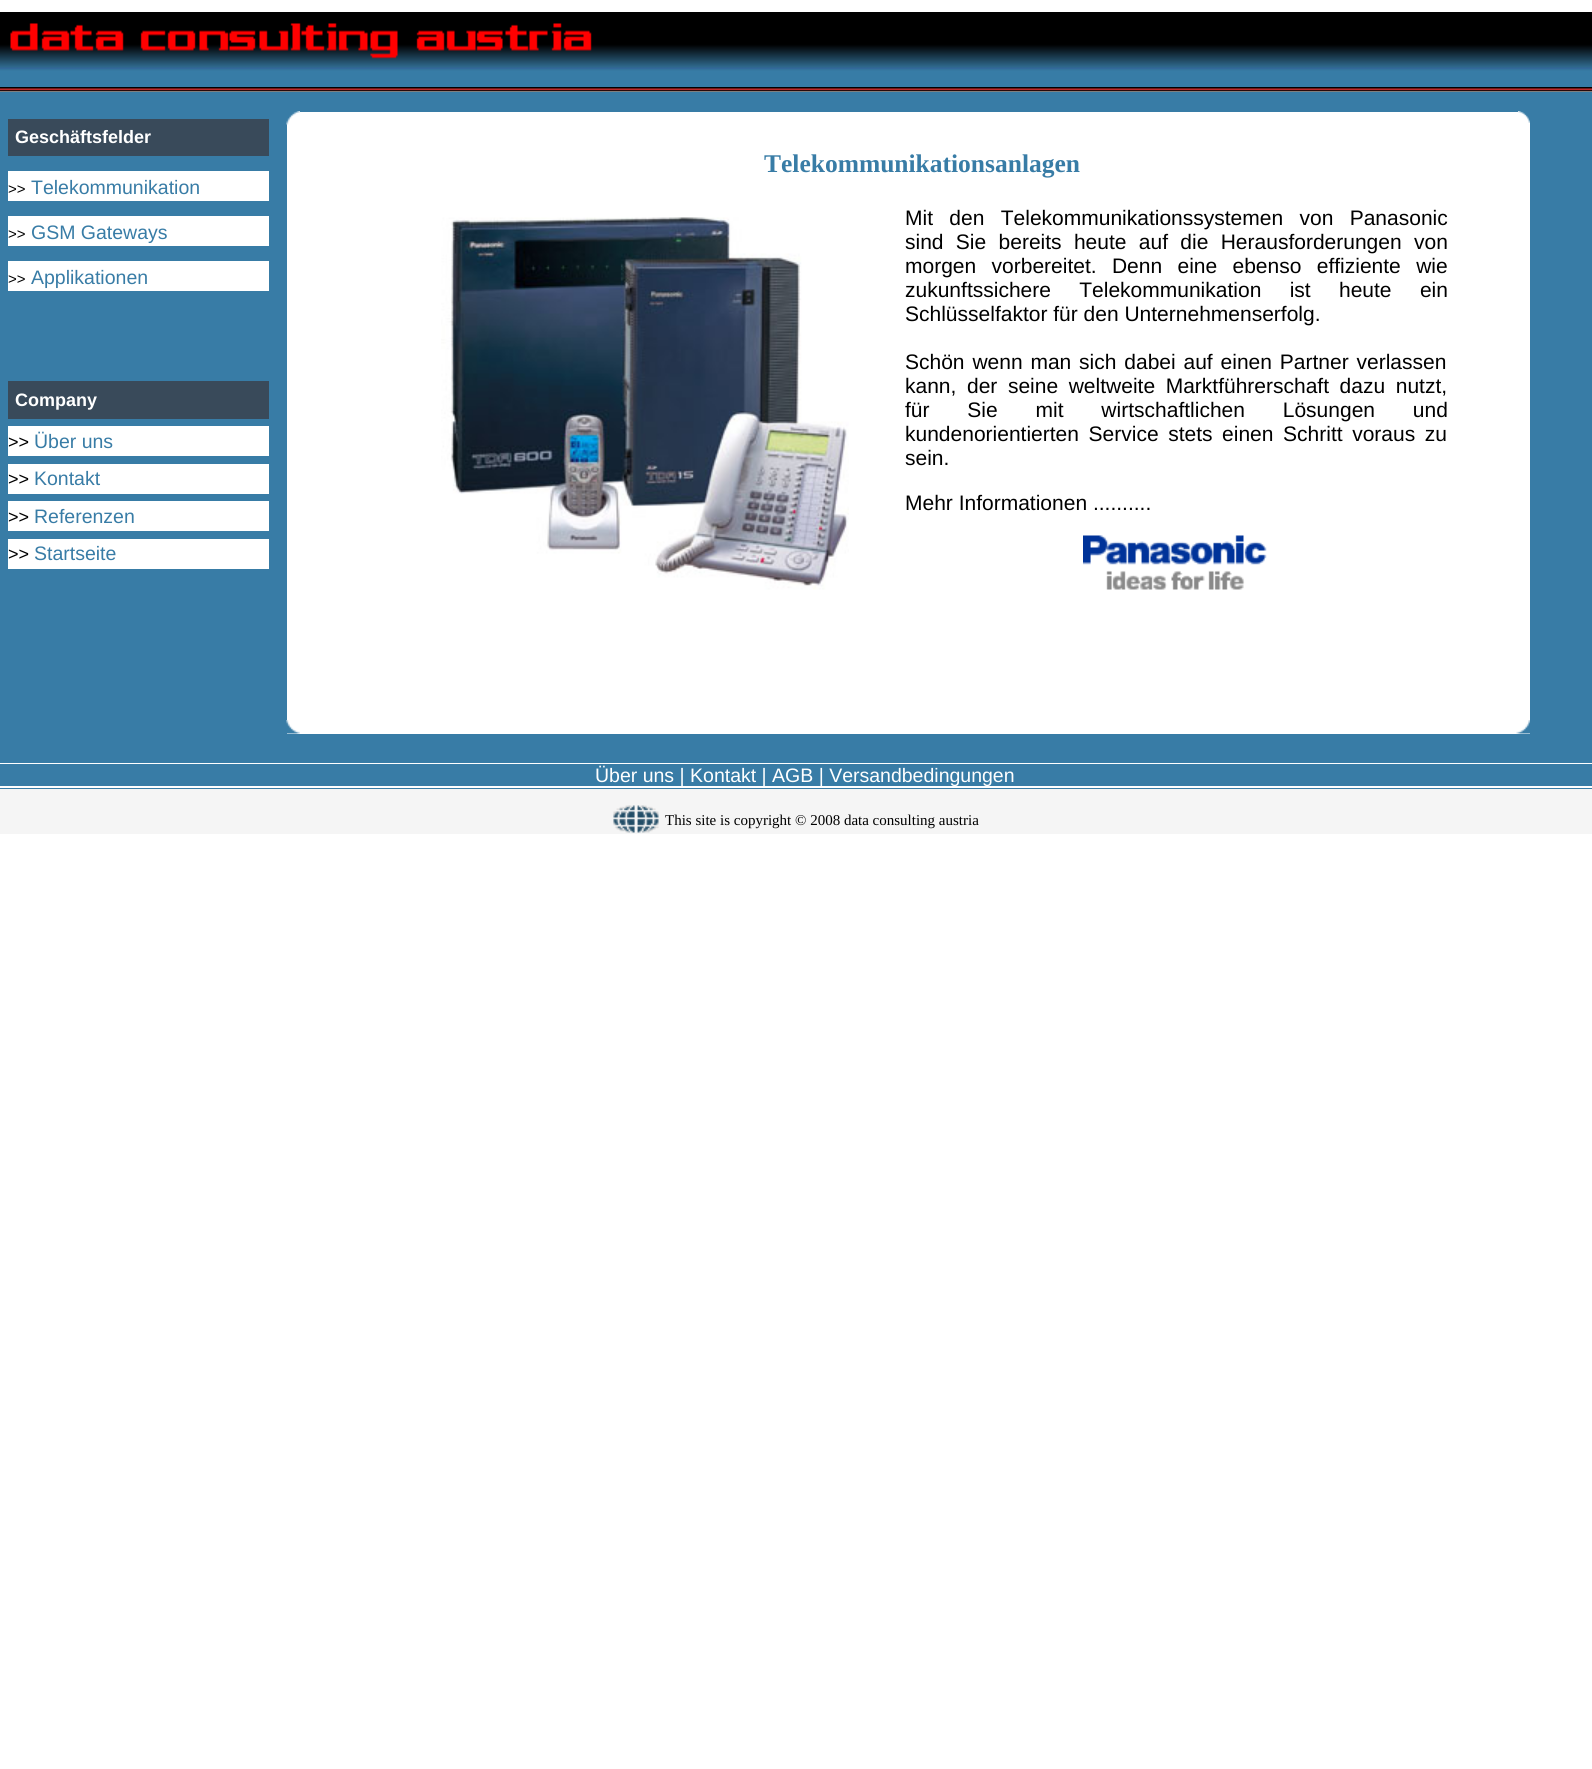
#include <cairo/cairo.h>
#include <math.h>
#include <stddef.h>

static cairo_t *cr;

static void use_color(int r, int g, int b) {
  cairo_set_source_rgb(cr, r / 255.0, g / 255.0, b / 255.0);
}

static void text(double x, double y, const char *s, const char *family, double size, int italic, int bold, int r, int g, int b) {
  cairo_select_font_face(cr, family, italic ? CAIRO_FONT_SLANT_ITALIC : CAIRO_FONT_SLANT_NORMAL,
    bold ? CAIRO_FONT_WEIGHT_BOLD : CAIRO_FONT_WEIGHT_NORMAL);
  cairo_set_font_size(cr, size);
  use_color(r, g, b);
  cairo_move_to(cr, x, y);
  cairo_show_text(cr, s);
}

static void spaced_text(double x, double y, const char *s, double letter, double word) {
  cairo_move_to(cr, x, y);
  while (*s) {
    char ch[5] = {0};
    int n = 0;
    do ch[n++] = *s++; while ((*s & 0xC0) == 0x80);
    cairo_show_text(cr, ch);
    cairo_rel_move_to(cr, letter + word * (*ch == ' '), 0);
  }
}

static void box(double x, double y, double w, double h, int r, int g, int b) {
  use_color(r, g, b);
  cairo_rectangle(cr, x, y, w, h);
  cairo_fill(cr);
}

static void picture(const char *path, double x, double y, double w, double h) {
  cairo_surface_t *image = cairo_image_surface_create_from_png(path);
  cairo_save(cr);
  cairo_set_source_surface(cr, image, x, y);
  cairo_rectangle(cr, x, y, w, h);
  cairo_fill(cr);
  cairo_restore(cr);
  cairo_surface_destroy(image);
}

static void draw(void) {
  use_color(255, 255, 255);
  cairo_paint(cr);
  picture("img_01.png", 0, 12, 1592, 75);
  picture("img_02.png", 10, 23, 582, 36);
  picture("img_03.png", 0, 87, 1592, 5);
  box(0, 92, 1592, 20, 56, 124, 166);
  box(0, 112, 287, 649, 56, 124, 166);
  box(8, 119, 261, 37, 57, 74, 90);
  box(8, 171, 261, 30, 255, 255, 255);
  box(8, 216, 261, 30, 255, 255, 255);
  box(8, 261, 261, 30, 255, 255, 255);
  box(8, 381, 261, 38, 57, 74, 90);
  box(8, 426, 261, 30, 255, 255, 255);
  box(8, 464, 261, 30, 255, 255, 255);
  box(8, 501, 261, 30, 255, 255, 255);
  box(8, 539, 261, 30, 255, 255, 255);
  picture("img_04.png", 286, 111, 14, 14);
  picture("img_05.png", 441, 217, 408, 373);
  picture("img_06.png", 1083, 535, 184, 55);
  picture("img_07.png", 1518, 111, 12, 12);
  box(1530, 112, 62, 622, 56, 124, 166);
  picture("img_08.png", 286, 720, 14, 14);
  picture("img_09.png", 1516, 720, 14, 14);
  box(287, 734, 1305, 27, 56, 124, 166);
  box(0, 761, 1592, 2, 56, 124, 166);
  box(0, 764, 1592, 22, 56, 124, 166);
  box(0, 788, 1592, 1, 56, 124, 166);
  box(0, 789, 1592, 45, 245, 245, 245);
  picture("img_10.png", 613, 805, 46, 28);
  text(15, 143, "Geschäftsfelder", "Liberation Sans", 18, 0, 1, 255, 255, 255);
  text(8, 194, ">>", "Liberation Sans", 15, 0, 0, 0, 0, 0);
  text(31, 194, "Telekommunikation", "Liberation Sans", 19.5, 0, 0, 56, 124, 166);
  text(8, 239, ">>", "Liberation Sans", 15, 0, 0, 0, 0, 0);
  text(31, 239, "GSM Gateways", "Liberation Sans", 19.5, 0, 0, 56, 124, 166);
  text(8, 284, ">>", "Liberation Sans", 15, 0, 0, 0, 0, 0);
  text(31, 284, "Applikationen", "Liberation Sans", 19.5, 0, 0, 56, 124, 166);
  text(15, 406, "Company", "Liberation Sans", 18, 0, 1, 255, 255, 255);
  text(8, 448, ">>", "Liberation Sans", 18, 0, 0, 0, 0, 0);
  text(34, 448, "Über uns", "Liberation Sans", 19.5, 0, 0, 56, 124, 166);
  text(8, 485, ">>", "Liberation Sans", 18, 0, 0, 0, 0, 0);
  text(34, 485, "Kontakt", "Liberation Sans", 19.5, 0, 0, 56, 124, 166);
  text(8, 523, ">>", "Liberation Sans", 18, 0, 0, 0, 0, 0);
  text(34, 523, "Referenzen", "Liberation Sans", 19.5, 0, 0, 56, 124, 166);
  text(8, 560, ">>", "Liberation Sans", 18, 0, 0, 0, 0, 0);
  text(34, 560, "Startseite", "Liberation Sans", 19.5, 0, 0, 56, 124, 166);
  text(764, 172, "Telekommunikationsanlagen", "Liberation Serif", 25.5, 0, 1, 56, 124, 166);
  cairo_select_font_face(cr, "Liberation Sans", CAIRO_FONT_SLANT_NORMAL, CAIRO_FONT_WEIGHT_NORMAL);
  cairo_set_font_size(cr, 21);
  use_color(0, 0, 0);
  spaced_text(905, 225, "Mit den Telekommunikationssystemen von Panasonic", 0, 10.5);
  spaced_text(905, 249, "sind Sie bereits heute auf die Herausforderungen von", 0, 6.5);
  spaced_text(905, 273, "morgen vorbereitet. Denn eine ebenso effiziente wie", 0, 9.5);
  spaced_text(905, 297, "zukunftssichere Telekommunikation ist heute ein", 0, 22.5);
  text(905, 321, "Schlüsselfaktor für den Unternehmenserfolg.", "Liberation Sans", 21, 0, 0, 0, 0, 0);
  spaced_text(905, 369, "Schön wenn man sich dabei auf einen Partner verlassen", 0, 2);
  spaced_text(905, 393, "kann, der seine weltweite Marktführerschaft dazu nutzt,", 0, 4.75);
  spaced_text(905, 417, "für Sie mit wirtschaftlichen Lösungen und", 0, 32);
  spaced_text(905, 441, "kundenorientierten Service stets einen Schritt voraus zu", 0, 3.75);
  text(905, 465, "sein.", "Liberation Sans", 21, 0, 0, 0, 0, 0);
  text(905, 510, "Mehr Informationen ..........", "Liberation Sans", 21, 0, 0, 0, 0, 0);
  text(595, 782, "Über uns | Kontakt | AGB | Versandbedingungen", "Liberation Sans", 19.5, 0, 0, 255, 255, 255);
  text(665, 825, "This site is copyright © 2008 data consulting austria", "Liberation Serif", 15, 0, 0, 0, 0, 0);
}

int main(void) {
  cairo_surface_t *surface = cairo_image_surface_create(CAIRO_FORMAT_RGB24, 1592, 1769);
  cr = cairo_create(surface);
  cairo_font_options_t *options = cairo_font_options_create();
  cairo_font_options_set_hint_metrics(options, CAIRO_HINT_METRICS_OFF);
  cairo_font_options_set_hint_style(options, CAIRO_HINT_STYLE_NONE);
  cairo_set_font_options(cr, options);
  cairo_set_miter_limit(cr, 4);
  draw();
  cairo_surface_write_to_png(surface, "out.png");
  cairo_font_options_destroy(options);
  cairo_destroy(cr);
  cairo_surface_destroy(surface);
  return 0;
}
